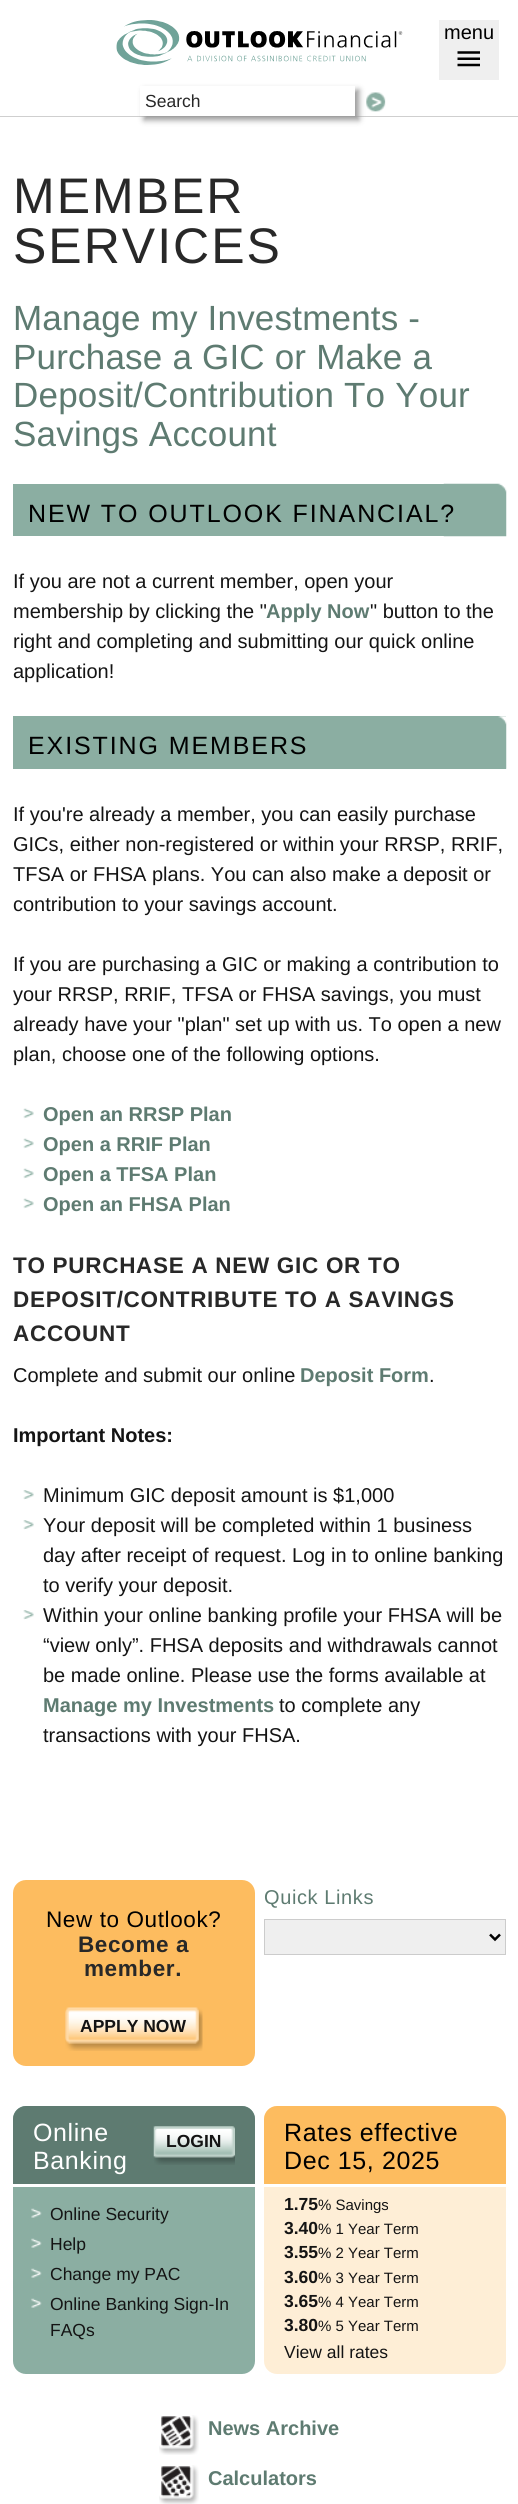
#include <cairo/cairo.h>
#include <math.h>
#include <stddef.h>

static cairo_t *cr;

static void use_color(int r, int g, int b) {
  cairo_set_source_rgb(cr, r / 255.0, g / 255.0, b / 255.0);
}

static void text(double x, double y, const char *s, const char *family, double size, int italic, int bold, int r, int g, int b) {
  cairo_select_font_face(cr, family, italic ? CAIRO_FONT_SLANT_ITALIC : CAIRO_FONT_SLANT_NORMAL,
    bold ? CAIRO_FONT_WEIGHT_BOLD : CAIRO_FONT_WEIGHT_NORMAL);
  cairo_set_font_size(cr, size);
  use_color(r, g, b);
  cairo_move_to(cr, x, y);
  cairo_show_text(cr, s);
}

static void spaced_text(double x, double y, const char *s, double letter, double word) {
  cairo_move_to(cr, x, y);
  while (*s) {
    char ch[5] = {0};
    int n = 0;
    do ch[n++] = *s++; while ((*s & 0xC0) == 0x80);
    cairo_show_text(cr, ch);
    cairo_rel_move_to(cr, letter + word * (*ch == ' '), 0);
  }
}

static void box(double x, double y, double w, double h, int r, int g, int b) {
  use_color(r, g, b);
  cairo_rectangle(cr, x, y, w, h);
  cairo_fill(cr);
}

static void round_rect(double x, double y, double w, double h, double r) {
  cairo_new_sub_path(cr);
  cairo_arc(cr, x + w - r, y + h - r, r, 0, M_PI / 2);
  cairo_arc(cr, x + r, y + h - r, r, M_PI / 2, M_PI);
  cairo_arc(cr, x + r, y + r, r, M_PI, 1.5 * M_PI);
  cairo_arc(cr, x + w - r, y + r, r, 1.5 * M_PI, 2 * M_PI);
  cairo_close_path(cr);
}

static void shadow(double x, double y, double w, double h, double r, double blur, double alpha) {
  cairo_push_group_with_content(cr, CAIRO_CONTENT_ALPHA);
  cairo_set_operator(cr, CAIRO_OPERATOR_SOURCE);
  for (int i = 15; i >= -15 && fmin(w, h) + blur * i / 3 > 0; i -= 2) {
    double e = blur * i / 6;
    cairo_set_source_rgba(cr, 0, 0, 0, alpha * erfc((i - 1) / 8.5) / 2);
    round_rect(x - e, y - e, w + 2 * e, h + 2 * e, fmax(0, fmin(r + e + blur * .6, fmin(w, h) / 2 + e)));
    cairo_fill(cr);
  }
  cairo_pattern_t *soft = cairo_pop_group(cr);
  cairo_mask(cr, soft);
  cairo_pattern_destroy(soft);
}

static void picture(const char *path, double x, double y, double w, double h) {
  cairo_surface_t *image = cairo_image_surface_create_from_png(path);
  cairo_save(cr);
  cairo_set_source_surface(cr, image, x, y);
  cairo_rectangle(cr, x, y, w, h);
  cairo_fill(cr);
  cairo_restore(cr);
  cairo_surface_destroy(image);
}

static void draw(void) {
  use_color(255, 255, 255);
  cairo_paint(cr);
  box(439, 20, 60, 60, 239, 239, 239);
  picture("img_01.png", 457, 51, 23, 16);
  box(0, 116, 518, 1, 207, 207, 207);
  picture("img_02.png", 116, 20, 287, 45);
  use_color(153, 153, 153);
  shadow(144, 90, 215, 30, 0, 3, 1);
  box(140, 86, 215, 30, 255, 255, 255);
  picture("img_03.png", 366, 92, 20, 20);
  box(13, 484, 431, 52, 139, 174, 162);
  picture("img_04.png", 443, 483, 64, 54);
  box(13, 716, 493, 53, 139, 174, 162);
  picture("img_05.png", 498, 716, 9, 53);
  picture("img_06.png", 23, 1108, 11, 11);
  picture("img_06.png", 23, 1138, 11, 11);
  picture("img_07.png", 23, 1168, 11, 11);
  picture("img_06.png", 23, 1198, 11, 11);
  picture("img_08.png", 23, 1490, 11, 10);
  picture("img_08.png", 23, 1520, 11, 10);
  picture("img_08.png", 23, 1610, 11, 10);
  use_color(239, 239, 239);
  cairo_rectangle(cr, 264.5, 1919.5, 241, 35);
  cairo_fill_preserve(cr);
  use_color(204, 204, 204);
  cairo_set_line_width(cr, 1);
  cairo_stroke(cr);
  cairo_new_path(cr);
  cairo_move_to(cr, 490, 1934.5);
  cairo_line_to(cr, 495, 1939.5);
  cairo_line_to(cr, 500, 1934.5);
  use_color(0, 0, 0);
  cairo_set_line_width(cr, 2.5);
  cairo_stroke(cr);
  use_color(253, 188, 95);
  round_rect(13, 1880, 242, 186, 13);
  cairo_fill(cr);
  picture("img_09.png", 65, 2007, 138, 44);
  use_color(139, 174, 162);
  round_rect(13, 2106, 242, 268, 13);
  cairo_fill(cr);
  use_color(94, 123, 113);
  cairo_new_path(cr);
  cairo_move_to(cr, 26, 2106);
  cairo_line_to(cr, 242, 2106);
  cairo_curve_to(cr, 249, 2106, 255, 2112, 255, 2119);
  cairo_line_to(cr, 255, 2186);
  cairo_line_to(cr, 13, 2186);
  cairo_line_to(cr, 13, 2119);
  cairo_curve_to(cr, 13, 2112, 19, 2106, 26, 2106);
  cairo_close_path(cr);
  cairo_fill(cr);
  box(13, 2184, 242, 3, 255, 255, 255);
  picture("img_10.png", 153, 2126, 82, 39);
  picture("img_11.png", 31, 2208, 11, 10);
  picture("img_11.png", 31, 2238, 11, 10);
  picture("img_11.png", 31, 2268, 11, 10);
  picture("img_11.png", 31, 2298, 11, 10);
  use_color(254, 238, 214);
  round_rect(264, 2106, 242, 268, 13);
  cairo_fill(cr);
  use_color(253, 188, 95);
  cairo_new_path(cr);
  cairo_move_to(cr, 277, 2106);
  cairo_line_to(cr, 493, 2106);
  cairo_curve_to(cr, 500, 2106, 506, 2112, 506, 2119);
  cairo_line_to(cr, 506, 2186);
  cairo_line_to(cr, 264, 2186);
  cairo_line_to(cr, 264, 2119);
  cairo_curve_to(cr, 264, 2112, 270, 2106, 277, 2106);
  cairo_close_path(cr);
  cairo_fill(cr);
  box(264, 2184, 242, 3, 255, 255, 255);
  picture("img_12.png", 159, 2415, 40, 40);
  picture("img_13.png", 159, 2465, 40, 39);
  text(444, 39, "menu", "Liberation Sans", 20, 0, 0, 0, 0, 0);
  text(145, 107, "Search", "Liberation Sans", 17.5, 0, 0, 40, 40, 40);
  cairo_set_font_size(cr, 50);
  spaced_text(13, 213, "MEMBER", 2, 0);
  spaced_text(13, 263, "SERVICES", 2, 0);
  cairo_set_font_size(cr, 35);
  use_color(94, 123, 113);
  spaced_text(13, 330, "Manage my Investments -", 0.2, 0);
  spaced_text(13, 369, "Purchase a GIC or Make a", 0.2, 0);
  spaced_text(13, 407, "Deposit/Contribution To Your", 0.2, 0);
  spaced_text(13, 446, "Savings Account", 0.2, 0);
  cairo_set_font_size(cr, 25);
  use_color(0, 0, 0);
  spaced_text(28, 522, "NEW TO OUTLOOK FINANCIAL?", 1.9, 0);
  text(13, 588, "If you are not a current member, open your", "Liberation Sans", 20, 0, 0, 20, 20, 20);
  text(13, 618, "membership by clicking the \"", "Liberation Sans", 20, 0, 0, 20, 20, 20);
  text(266, 618, "Apply Now", "Liberation Sans", 20, 0, 1, 94, 123, 113);
  text(370, 618, "\" button to the", "Liberation Sans", 20, 0, 0, 20, 20, 20);
  text(13, 648, "right and completing and submitting our quick online", "Liberation Sans", 20, 0, 0, 20, 20, 20);
  text(13, 678, "application!", "Liberation Sans", 20, 0, 0, 20, 20, 20);
  cairo_set_font_size(cr, 25);
  use_color(0, 0, 0);
  spaced_text(28, 754, "EXISTING MEMBERS", 1.9, 0);
  text(13, 821, "If you're already a member, you can easily purchase", "Liberation Sans", 20, 0, 0, 20, 20, 20);
  text(13, 851, "GICs, either non-registered or within your RRSP, RRIF,", "Liberation Sans", 20, 0, 0, 20, 20, 20);
  text(13, 881, "TFSA or FHSA plans. You can also make a deposit or", "Liberation Sans", 20, 0, 0, 20, 20, 20);
  text(13, 911, "contribution to your savings account.", "Liberation Sans", 20, 0, 0, 20, 20, 20);
  text(13, 971, "If you are purchasing a GIC or making a contribution to", "Liberation Sans", 20, 0, 0, 20, 20, 20);
  text(13, 1001, "your RRSP, RRIF, TFSA or FHSA savings, you must", "Liberation Sans", 20, 0, 0, 20, 20, 20);
  text(13, 1031, "already have your \"plan\" set up with us. To open a new", "Liberation Sans", 20, 0, 0, 20, 20, 20);
  text(13, 1061, "plan, choose one of the following options.", "Liberation Sans", 20, 0, 0, 20, 20, 20);
  text(43, 1121, "Open an RRSP Plan", "Liberation Sans", 20, 0, 1, 94, 123, 113);
  text(43, 1151, "Open a RRIF Plan", "Liberation Sans", 20, 0, 1, 94, 123, 113);
  text(43, 1181, "Open a TFSA Plan", "Liberation Sans", 20, 0, 1, 94, 123, 113);
  text(43, 1211, "Open an FHSA Plan", "Liberation Sans", 20, 0, 1, 94, 123, 113);
  cairo_set_font_size(cr, 22.5);
  use_color(40, 40, 40);
  spaced_text(13, 1273, "TO PURCHASE A NEW GIC OR TO", 0.7, 0);
  spaced_text(13, 1307, "DEPOSIT/CONTRIBUTE TO A SAVINGS", 0.7, 0);
  spaced_text(13, 1341, "ACCOUNT", 0.7, 0);
  text(13, 1382, "Complete and submit our online", "Liberation Sans", 20, 0, 0, 20, 20, 20);
  text(300, 1382, "Deposit Form", "Liberation Sans", 20, 0, 1, 94, 123, 113);
  text(429, 1382, ".", "Liberation Sans", 20, 0, 0, 20, 20, 20);
  text(13, 1442, "Important Notes:", "Liberation Sans", 20, 0, 1, 20, 20, 20);
  text(43, 1502, "Minimum GIC deposit amount is $1,000", "Liberation Sans", 20, 0, 0, 20, 20, 20);
  text(43, 1532, "Your deposit will be completed within 1 business", "Liberation Sans", 20, 0, 0, 20, 20, 20);
  text(43, 1562, "day after receipt of request. Log in to online banking", "Liberation Sans", 20, 0, 0, 20, 20, 20);
  text(43, 1592, "to verify your deposit.", "Liberation Sans", 20, 0, 0, 20, 20, 20);
  text(43, 1622, "Within your online banking profile your FHSA will be", "Liberation Sans", 20, 0, 0, 20, 20, 20);
  text(43, 1652, "“view only”. FHSA deposits and withdrawals cannot", "Liberation Sans", 20, 0, 0, 20, 20, 20);
  text(43, 1682, "be made online. Please use the forms available at", "Liberation Sans", 20, 0, 0, 20, 20, 20);
  text(43, 1712, "Manage my Investments", "Liberation Sans", 20, 0, 1, 94, 123, 113);
  text(279, 1712, "to complete any", "Liberation Sans", 20, 0, 0, 20, 20, 20);
  text(43, 1742, "transactions with your FHSA.", "Liberation Sans", 20, 0, 0, 20, 20, 20);
  use_color(94, 123, 113);
  spaced_text(264, 1904, "Quick Links", 0.6, 0);
  cairo_set_font_size(cr, 22.5);
  use_color(0, 0, 0);
  spaced_text(46, 1927, "New to Outlook?", 0.6, 0);
  cairo_select_font_face(cr, "Liberation Sans", CAIRO_FONT_SLANT_NORMAL, CAIRO_FONT_WEIGHT_BOLD);
  use_color(40, 40, 40);
  spaced_text(78, 1952, "Become a", 0.6, 0);
  spaced_text(84, 1976, "member.", 0.6, 0);
  text(80, 2032, "APPLY NOW", "Liberation Sans", 17.5, 0, 1, 20, 20, 20);
  cairo_select_font_face(cr, "Liberation Sans", CAIRO_FONT_SLANT_NORMAL, CAIRO_FONT_WEIGHT_NORMAL);
  cairo_set_font_size(cr, 25);
  use_color(255, 255, 255);
  spaced_text(33, 2141, "Online", 0.6, 0);
  spaced_text(33, 2169, "Banking", 0.6, 0);
  text(166, 2147, "LOGIN", "Liberation Sans", 17.5, 0, 1, 20, 20, 20);
  text(50, 2220, "Online Security", "Liberation Sans", 17.5, 0, 0, 20, 20, 20);
  text(50, 2250, "Help", "Liberation Sans", 17.5, 0, 0, 20, 20, 20);
  text(50, 2280, "Change my PAC", "Liberation Sans", 17.5, 0, 0, 20, 20, 20);
  text(50, 2310, "Online Banking Sign-In", "Liberation Sans", 17.5, 0, 0, 20, 20, 20);
  text(50, 2336, "FAQs", "Liberation Sans", 17.5, 0, 0, 20, 20, 20);
  cairo_set_font_size(cr, 25);
  use_color(0, 0, 0);
  spaced_text(284, 2141, "Rates effective", 0.6, 0);
  spaced_text(284, 2169, "Dec 15, 2025", 0.6, 0);
  text(284, 2210, "1.75", "Liberation Sans", 17.5, 0, 1, 20, 20, 20);
  text(318, 2210, "% Savings", "Liberation Sans", 15, 0, 0, 20, 20, 20);
  text(284, 2234, "3.40", "Liberation Sans", 17.5, 0, 1, 20, 20, 20);
  text(318, 2234, "% 1 Year Term", "Liberation Sans", 15, 0, 0, 20, 20, 20);
  text(284, 2258, "3.55", "Liberation Sans", 17.5, 0, 1, 20, 20, 20);
  text(318, 2258, "% 2 Year Term", "Liberation Sans", 15, 0, 0, 20, 20, 20);
  text(284, 2283, "3.60", "Liberation Sans", 17.5, 0, 1, 20, 20, 20);
  text(318, 2283, "% 3 Year Term", "Liberation Sans", 15, 0, 0, 20, 20, 20);
  text(284, 2307, "3.65", "Liberation Sans", 17.5, 0, 1, 20, 20, 20);
  text(318, 2307, "% 4 Year Term", "Liberation Sans", 15, 0, 0, 20, 20, 20);
  text(284, 2331, "3.80", "Liberation Sans", 17.5, 0, 1, 20, 20, 20);
  text(318, 2331, "% 5 Year Term", "Liberation Sans", 15, 0, 0, 20, 20, 20);
  text(284, 2358, "View all rates", "Liberation Sans", 17.5, 0, 0, 20, 20, 20);
  text(208, 2435, "News Archive", "Liberation Sans", 20, 0, 1, 94, 123, 113);
  text(208, 2485, "Calculators", "Liberation Sans", 20, 0, 1, 94, 123, 113);
}

int main(void) {
  cairo_surface_t *surface = cairo_image_surface_create(CAIRO_FORMAT_RGB24, 518, 2504);
  cr = cairo_create(surface);
  cairo_font_options_t *options = cairo_font_options_create();
  cairo_font_options_set_hint_metrics(options, CAIRO_HINT_METRICS_OFF);
  cairo_font_options_set_hint_style(options, CAIRO_HINT_STYLE_NONE);
  cairo_set_font_options(cr, options);
  cairo_set_miter_limit(cr, 4);
  draw();
  cairo_surface_write_to_png(surface, "out.png");
  cairo_font_options_destroy(options);
  cairo_destroy(cr);
  cairo_surface_destroy(surface);
  return 0;
}
